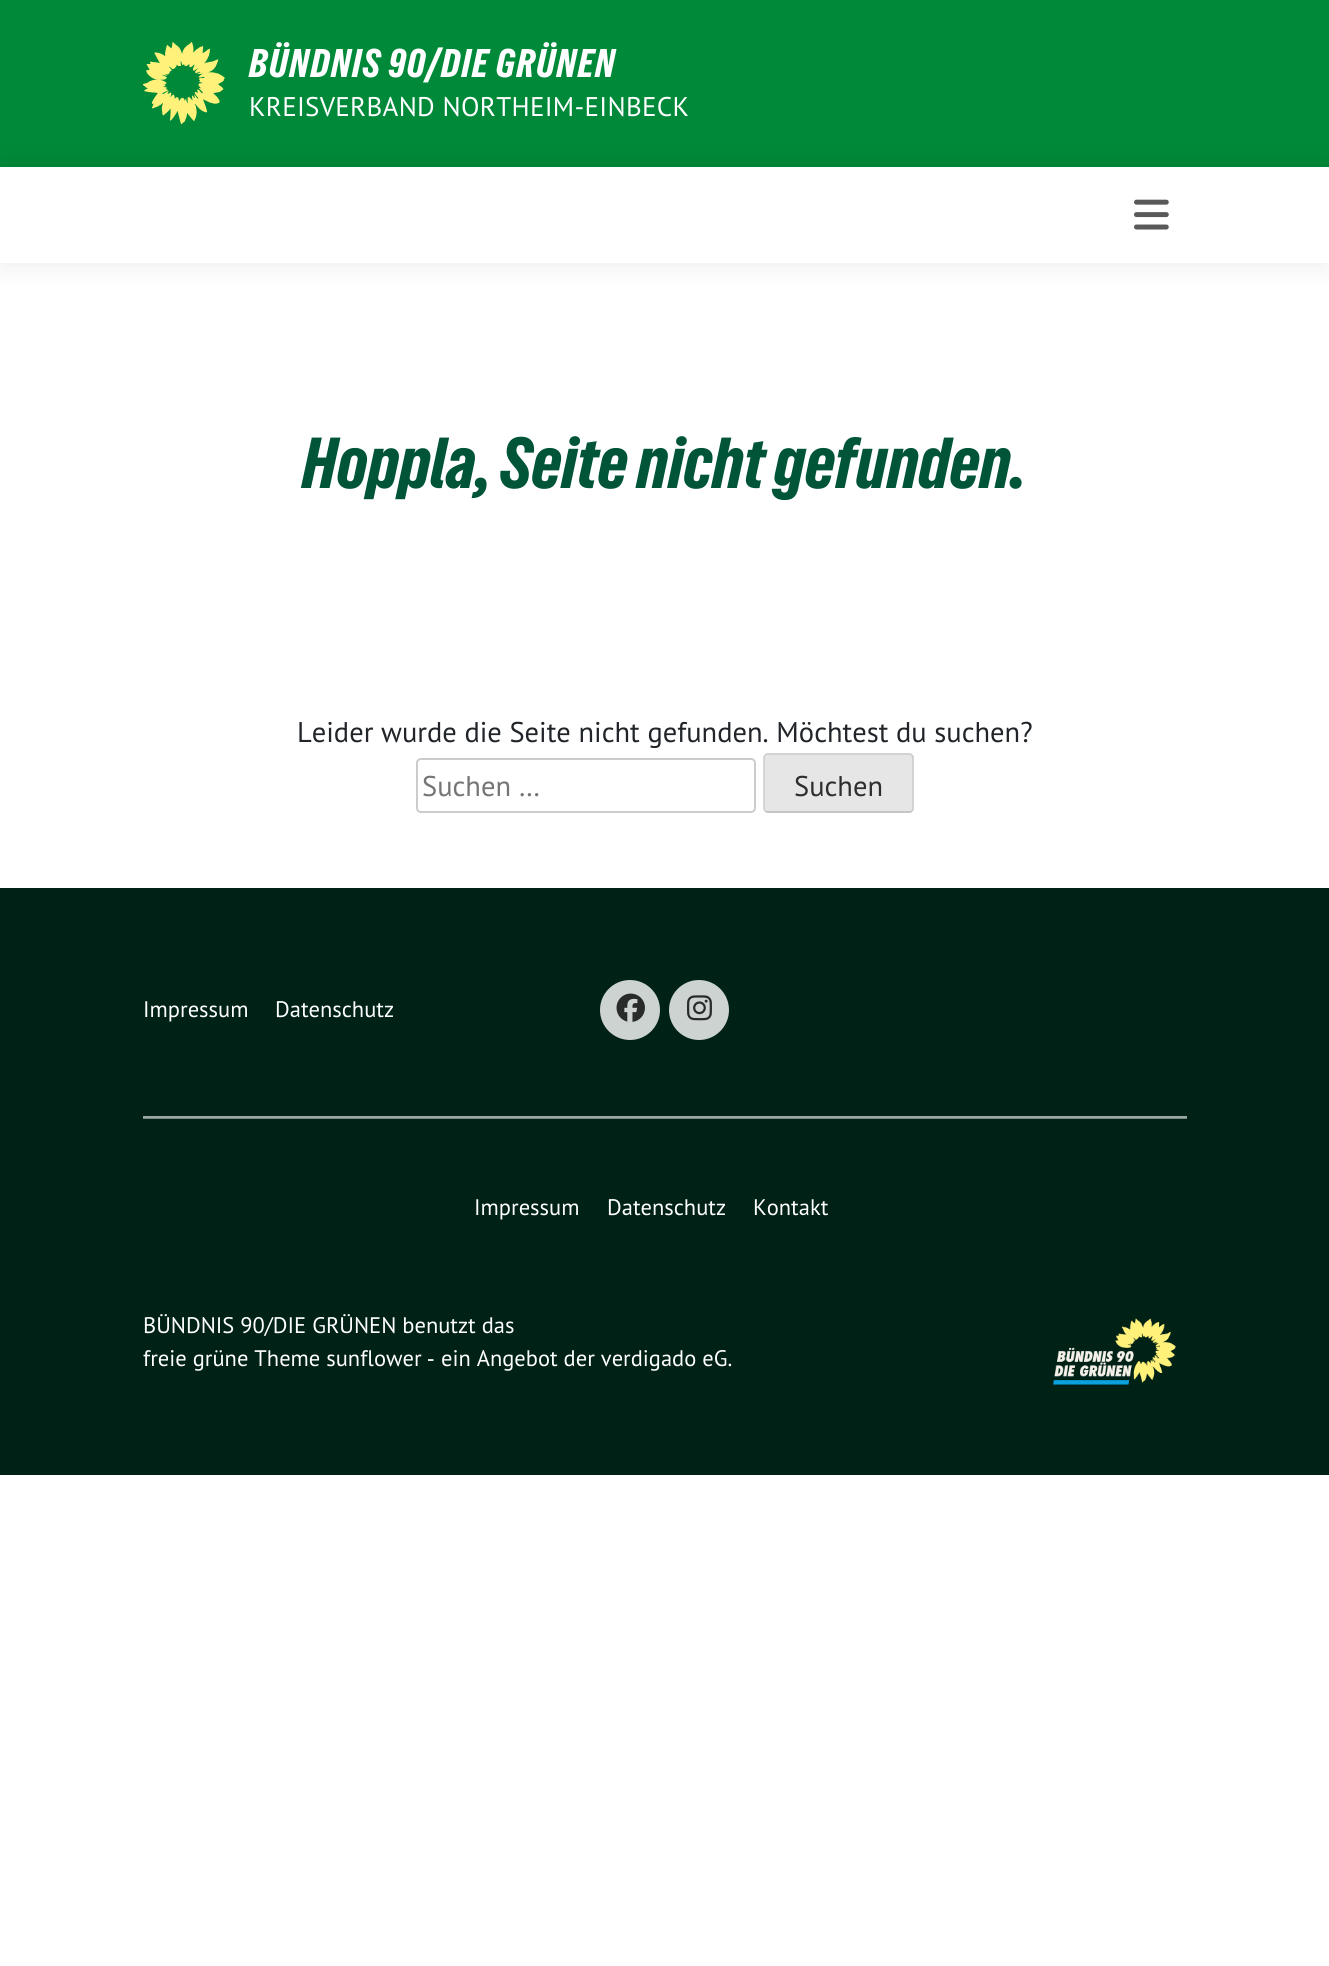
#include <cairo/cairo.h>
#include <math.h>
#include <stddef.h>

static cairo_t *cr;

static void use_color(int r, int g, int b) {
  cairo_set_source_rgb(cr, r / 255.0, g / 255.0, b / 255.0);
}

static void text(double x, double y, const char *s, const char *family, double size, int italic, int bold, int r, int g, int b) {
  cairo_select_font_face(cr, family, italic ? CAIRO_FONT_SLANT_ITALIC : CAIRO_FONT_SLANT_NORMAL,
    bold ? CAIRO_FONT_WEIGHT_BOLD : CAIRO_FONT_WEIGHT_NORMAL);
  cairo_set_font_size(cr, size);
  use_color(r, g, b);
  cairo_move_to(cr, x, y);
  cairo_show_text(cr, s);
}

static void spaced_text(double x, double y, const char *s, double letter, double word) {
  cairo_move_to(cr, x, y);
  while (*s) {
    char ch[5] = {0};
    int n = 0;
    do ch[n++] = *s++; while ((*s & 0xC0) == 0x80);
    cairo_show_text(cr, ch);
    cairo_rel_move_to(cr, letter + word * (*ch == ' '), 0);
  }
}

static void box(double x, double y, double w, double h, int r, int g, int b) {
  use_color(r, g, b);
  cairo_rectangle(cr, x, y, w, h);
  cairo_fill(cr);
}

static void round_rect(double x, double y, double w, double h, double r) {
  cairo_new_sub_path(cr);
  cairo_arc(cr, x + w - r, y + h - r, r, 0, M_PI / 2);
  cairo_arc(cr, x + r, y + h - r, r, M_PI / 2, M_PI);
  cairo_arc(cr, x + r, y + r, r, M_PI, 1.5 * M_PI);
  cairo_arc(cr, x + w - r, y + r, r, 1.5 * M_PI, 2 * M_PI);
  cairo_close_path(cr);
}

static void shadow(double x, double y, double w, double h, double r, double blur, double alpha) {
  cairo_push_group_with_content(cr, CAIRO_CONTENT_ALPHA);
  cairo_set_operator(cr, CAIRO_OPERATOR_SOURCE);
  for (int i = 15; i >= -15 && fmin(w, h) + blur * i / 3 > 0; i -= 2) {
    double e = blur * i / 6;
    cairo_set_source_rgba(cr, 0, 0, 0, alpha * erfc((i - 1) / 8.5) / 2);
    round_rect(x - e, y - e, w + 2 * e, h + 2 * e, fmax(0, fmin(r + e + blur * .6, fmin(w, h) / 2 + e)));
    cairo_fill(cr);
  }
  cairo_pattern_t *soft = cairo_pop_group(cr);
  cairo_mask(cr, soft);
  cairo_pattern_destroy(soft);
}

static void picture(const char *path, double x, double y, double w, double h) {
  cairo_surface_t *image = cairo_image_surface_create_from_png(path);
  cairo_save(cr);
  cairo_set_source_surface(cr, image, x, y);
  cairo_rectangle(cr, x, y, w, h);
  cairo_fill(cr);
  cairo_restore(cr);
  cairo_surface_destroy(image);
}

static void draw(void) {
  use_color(255, 255, 255);
  cairo_paint(cr);
  box(0, 0, 1329, 167, 0, 137, 57);
  picture("img_01.png", 143, 42, 82, 83);
  use_color(0, 0, 0);
  shadow(0, 168, 1329, 96, 0, 15, 0.08);
  box(0, 167, 1329, 96, 255, 255, 255);
  picture("img_02.png", 1134, 199, 35, 31);
  round_rect(417, 759, 338, 53, 4);
  use_color(204, 204, 204);
  cairo_stroke(cr);
  use_color(230, 230, 230);
  round_rect(764, 753, 150, 60, 5);
  cairo_fill(cr);
  cairo_new_path(cr);
  cairo_move_to(cr, 911.5, 811);
  cairo_curve_to(cr, 911, 812, 910, 812, 909, 812);
  cairo_line_to(cr, 768, 812);
  cairo_curve_to(cr, 767, 812, 766, 812, 765.5, 811);
  use_color(187, 187, 187);
  cairo_set_line_width(cr, 1.5);
  cairo_stroke(cr);
  cairo_new_path(cr);
  cairo_move_to(cr, 765.5, 811);
  cairo_curve_to(cr, 764.5, 810.5, 764, 809.5, 764, 808.5);
  cairo_line_to(cr, 764, 757.5);
  cairo_curve_to(cr, 764, 756.5, 764.5, 755.5, 765.5, 755);
  cairo_curve_to(cr, 766, 754, 767, 754, 768, 754);
  cairo_line_to(cr, 909, 754);
  cairo_curve_to(cr, 910, 754, 911, 754, 911.5, 755);
  cairo_curve_to(cr, 912.5, 755.5, 913, 756.5, 913, 757.5);
  cairo_line_to(cr, 913, 808.5);
  cairo_curve_to(cr, 913, 809.5, 912.5, 810.5, 911.5, 811);
  use_color(204, 204, 204);
  cairo_stroke(cr);
  box(0, 888, 1329, 587, 0, 34, 22);
  use_color(204, 211, 208);
  cairo_arc(cr, 630, 1010, 30, 0, 2 * M_PI);
  cairo_fill(cr);
  picture("img_03.png", 616, 993, 29, 29);
  cairo_arc(cr, 699, 1010, 30, 0, 2 * M_PI);
  cairo_fill(cr);
  picture("img_04.png", 687, 995, 25, 26);
  box(143, 1118, 1044, 1, 122, 136, 131);
  box(143, 1116, 1044, 2, 153, 167, 162);
  picture("img_05.png", 1053, 1318, 123, 67);
  cairo_select_font_face(cr, "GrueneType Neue", CAIRO_FONT_SLANT_NORMAL, CAIRO_FONT_WEIGHT_NORMAL);
  cairo_set_font_size(cr, 37.5);
  use_color(255, 255, 255);
  spaced_text(249, 77, "BÜNDNIS 90/DIE GRÜNEN", 1.5, 0);
  cairo_select_font_face(cr, "PT Sans", CAIRO_FONT_SLANT_NORMAL, CAIRO_FONT_WEIGHT_NORMAL);
  cairo_set_font_size(cr, 27);
  spaced_text(249, 116, "KREISVERBAND NORTHEIM-EINBECK", 0.3, 0);
  text(302, 488, "Hoppla, Seite nicht gefunden.", "GrueneType Neue", 67.5, 0, 0, 0, 84, 55);
  text(297, 742, "Leider wurde die Seite nicht gefunden. Möchtest du suchen?", "PT Sans", 28.5, 0, 0, 33, 37, 41);
  text(422, 796, "Suchen …", "PT Sans", 28.5, 0, 0, 117, 117, 117);
  text(794, 796, "Suchen", "PT Sans", 28.5, 0, 0, 46, 46, 46);
  text(143, 1017, "Impressum", "PT Sans", 22.5, 0, 0, 255, 255, 255);
  text(275, 1017, "Datenschutz", "PT Sans", 22.5, 0, 0, 255, 255, 255);
  text(474, 1215, "Impressum", "PT Sans", 22.5, 0, 0, 255, 255, 255);
  text(607, 1215, "Datenschutz", "PT Sans", 22.5, 0, 0, 255, 255, 255);
  text(753, 1215, "Kontakt", "PT Sans", 22.5, 0, 0, 255, 255, 255);
  text(143, 1333, "BÜNDNIS 90/DIE GRÜNEN benutzt das", "PT Sans", 22.5, 0, 0, 255, 255, 255);
  text(143, 1366, "freie grüne Theme sunflower", "PT Sans", 22.5, 0, 0, 255, 255, 255);
  text(427, 1366, "‐", "Liberation Sans", 22.5, 0, 0, 255, 255, 255);
  text(441, 1366, "ein Angebot der verdigado eG.", "PT Sans", 22.5, 0, 0, 255, 255, 255);
}

int main(void) {
  cairo_surface_t *surface = cairo_image_surface_create(CAIRO_FORMAT_RGB24, 1329, 1966);
  cr = cairo_create(surface);
  cairo_font_options_t *options = cairo_font_options_create();
  cairo_font_options_set_hint_metrics(options, CAIRO_HINT_METRICS_OFF);
  cairo_font_options_set_hint_style(options, CAIRO_HINT_STYLE_NONE);
  cairo_set_font_options(cr, options);
  cairo_set_miter_limit(cr, 4);
  draw();
  cairo_surface_write_to_png(surface, "out.png");
  cairo_font_options_destroy(options);
  cairo_destroy(cr);
  cairo_surface_destroy(surface);
  return 0;
}
